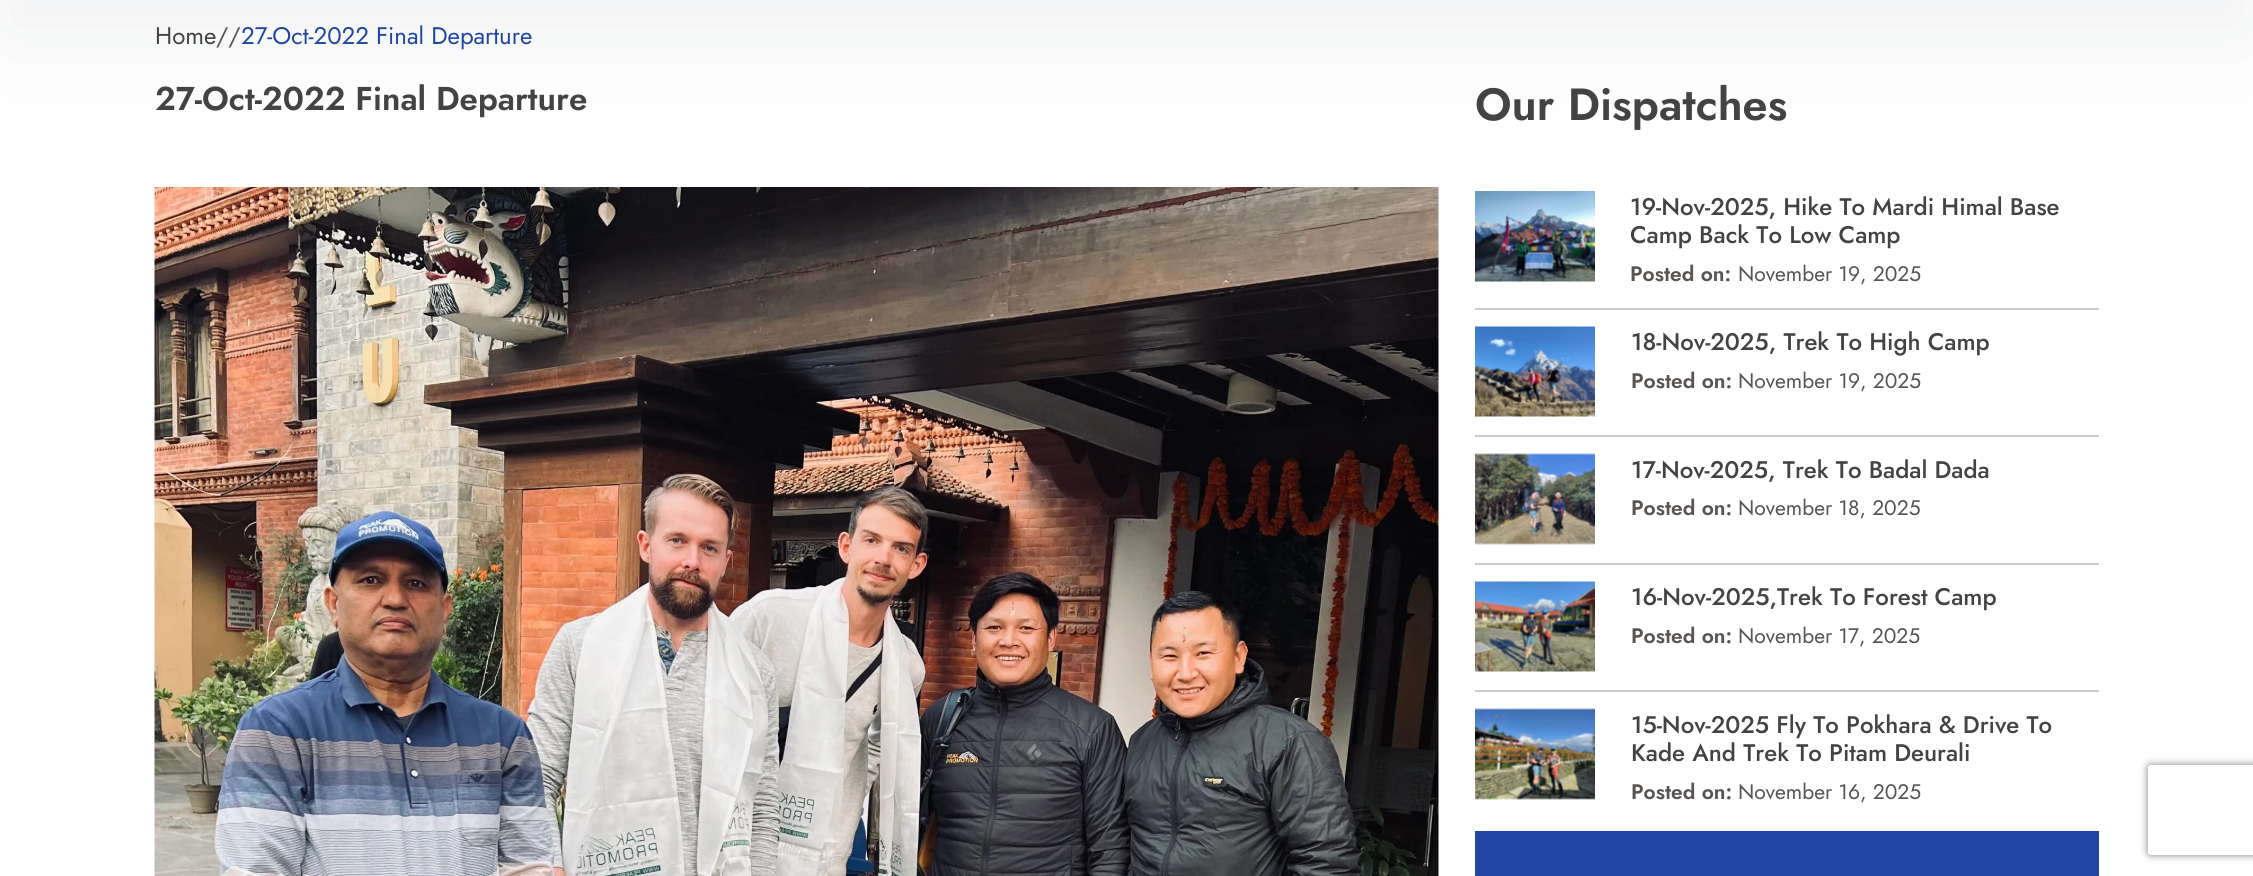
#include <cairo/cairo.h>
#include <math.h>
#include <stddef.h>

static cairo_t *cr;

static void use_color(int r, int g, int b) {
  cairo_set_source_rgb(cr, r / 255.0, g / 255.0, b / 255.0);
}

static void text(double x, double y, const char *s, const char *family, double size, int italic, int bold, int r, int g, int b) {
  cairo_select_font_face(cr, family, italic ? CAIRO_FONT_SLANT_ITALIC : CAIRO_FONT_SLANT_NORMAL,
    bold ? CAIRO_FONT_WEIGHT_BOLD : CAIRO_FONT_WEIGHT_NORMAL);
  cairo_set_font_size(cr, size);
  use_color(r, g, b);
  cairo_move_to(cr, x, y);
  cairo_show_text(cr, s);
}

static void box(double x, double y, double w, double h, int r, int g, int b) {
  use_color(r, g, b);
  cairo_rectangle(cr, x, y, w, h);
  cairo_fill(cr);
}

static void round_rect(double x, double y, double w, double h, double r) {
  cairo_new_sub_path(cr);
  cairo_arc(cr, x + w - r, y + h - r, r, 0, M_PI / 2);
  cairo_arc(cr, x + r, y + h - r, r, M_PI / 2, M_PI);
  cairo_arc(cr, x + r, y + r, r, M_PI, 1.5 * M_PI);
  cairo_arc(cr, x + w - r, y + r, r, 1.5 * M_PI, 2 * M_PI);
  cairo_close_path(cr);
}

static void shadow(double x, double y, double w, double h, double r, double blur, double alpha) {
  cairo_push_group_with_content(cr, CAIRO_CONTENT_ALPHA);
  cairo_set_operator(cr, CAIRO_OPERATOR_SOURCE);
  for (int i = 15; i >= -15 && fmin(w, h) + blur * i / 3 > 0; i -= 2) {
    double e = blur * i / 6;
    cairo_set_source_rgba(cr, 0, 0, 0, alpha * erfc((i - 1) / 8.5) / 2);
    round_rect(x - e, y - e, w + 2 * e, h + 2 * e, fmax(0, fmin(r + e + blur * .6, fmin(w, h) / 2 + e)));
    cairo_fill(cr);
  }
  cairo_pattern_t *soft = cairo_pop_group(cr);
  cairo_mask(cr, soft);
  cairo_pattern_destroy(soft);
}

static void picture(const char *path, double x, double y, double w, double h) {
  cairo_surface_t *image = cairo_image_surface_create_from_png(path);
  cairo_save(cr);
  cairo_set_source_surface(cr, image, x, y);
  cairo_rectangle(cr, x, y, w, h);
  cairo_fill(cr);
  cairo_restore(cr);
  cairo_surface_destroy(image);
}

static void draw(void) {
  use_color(255, 255, 255);
  cairo_paint(cr);
  picture("img_01.png", 154, 187, 1285, 689);
  picture("img_02.png", 1475, 191, 120, 91);
  use_color(40, 54, 73);
  shadow(0, -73, 2253, 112, 0, 52.5, 0.07);
  box(1475, 308, 624, 2, 204, 204, 204);
  box(1475, 435, 624, 2, 204, 204, 204);
  picture("img_03.png", 1475, 326, 120, 91);
  box(1475, 563, 624, 2, 204, 204, 204);
  picture("img_04.png", 1475, 453, 120, 92);
  box(1475, 690, 624, 2, 204, 204, 204);
  picture("img_05.png", 1475, 581, 120, 91);
  picture("img_06.png", 1475, 708, 120, 92);
  box(1475, 831, 624, 45, 32, 69, 164);
  cairo_save(cr);
  cairo_set_fill_rule(cr, CAIRO_FILL_RULE_EVEN_ODD);
  cairo_new_path(cr);
  cairo_move_to(cr, 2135, 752);
  cairo_line_to(cr, 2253, 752);
  cairo_line_to(cr, 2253, 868);
  cairo_line_to(cr, 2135, 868);
  cairo_close_path(cr);
  cairo_move_to(cr, 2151, 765);
  cairo_line_to(cr, 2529, 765);
  cairo_curve_to(cr, 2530.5, 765, 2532, 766.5, 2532, 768);
  cairo_line_to(cr, 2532, 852);
  cairo_curve_to(cr, 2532, 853.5, 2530.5, 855, 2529, 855);
  cairo_line_to(cr, 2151, 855);
  cairo_curve_to(cr, 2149.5, 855, 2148, 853.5, 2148, 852);
  cairo_line_to(cr, 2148, 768);
  cairo_curve_to(cr, 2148, 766.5, 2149.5, 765, 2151, 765);
  cairo_close_path(cr);
  cairo_clip(cr);
  use_color(128, 128, 128);
  shadow(2148, 765, 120, 90, 3, 4, 1);
  cairo_restore(cr);
  text(155, 44, "Home", "Jost", 24, 0, 0, 67, 67, 67);
  text(216, 44, "//", "Jost", 24, 0, 0, 87, 84, 82);
  text(241, 44, "27-Oct-2022 Final Departure", "Jost", 24, 0, 0, 32, 69, 164);
  text(155, 110, "27-Oct-2022 Final Departure", "Jost SemiBold", 33, 0, 0, 67, 67, 67);
  text(1475, 120, "Our Dispatches", "Jost SemiBold", 45, 0, 0, 67, 67, 67);
  text(1630, 215, "19-Nov-2025, Hike To Mardi Himal Base", "Jost Medium", 24, 0, 0, 67, 67, 67);
  text(1630, 243, "Camp Back To Low Camp", "Jost Medium", 24, 0, 0, 67, 67, 67);
  text(1630, 281, "Posted on:", "Jost SemiBold", 21, 0, 0, 87, 84, 82);
  text(1738, 281, "November 19, 2025", "Jost", 21, 0, 0, 87, 84, 82);
  text(1631, 350, "18-Nov-2025, Trek To High Camp", "Jost Medium", 24, 0, 0, 67, 67, 67);
  text(1631, 388, "Posted on:", "Jost SemiBold", 21, 0, 0, 87, 84, 82);
  text(1738, 388, "November 19, 2025", "Jost", 21, 0, 0, 87, 84, 82);
  text(1631, 478, "17-Nov-2025, Trek To Badal Dada", "Jost Medium", 24, 0, 0, 67, 67, 67);
  text(1631, 515, "Posted on:", "Jost SemiBold", 21, 0, 0, 87, 84, 82);
  text(1738, 515, "November 18, 2025", "Jost", 21, 0, 0, 87, 84, 82);
  text(1631, 605, "16-Nov-2025,Trek To Forest Camp", "Jost Medium", 24, 0, 0, 67, 67, 67);
  text(1631, 643, "Posted on:", "Jost SemiBold", 21, 0, 0, 87, 84, 82);
  text(1738, 643, "November 17, 2025", "Jost", 21, 0, 0, 87, 84, 82);
  text(1631, 733, "15-Nov-2025 Fly To Pokhara & Drive To", "Jost Medium", 24, 0, 0, 67, 67, 67);
  text(1631, 761, "Kade And Trek To Pitam Deurali", "Jost Medium", 24, 0, 0, 67, 67, 67);
  text(1631, 799, "Posted on:", "Jost SemiBold", 21, 0, 0, 87, 84, 82);
  text(1738, 799, "November 16, 2025", "Jost", 21, 0, 0, 87, 84, 82);
}

int main(void) {
  cairo_surface_t *surface = cairo_image_surface_create(CAIRO_FORMAT_RGB24, 2253, 876);
  cr = cairo_create(surface);
  cairo_font_options_t *options = cairo_font_options_create();
  cairo_font_options_set_hint_metrics(options, CAIRO_HINT_METRICS_OFF);
  cairo_font_options_set_hint_style(options, CAIRO_HINT_STYLE_NONE);
  cairo_set_font_options(cr, options);
  cairo_set_miter_limit(cr, 4);
  draw();
  cairo_surface_write_to_png(surface, "out.png");
  cairo_font_options_destroy(options);
  cairo_destroy(cr);
  cairo_surface_destroy(surface);
  return 0;
}
